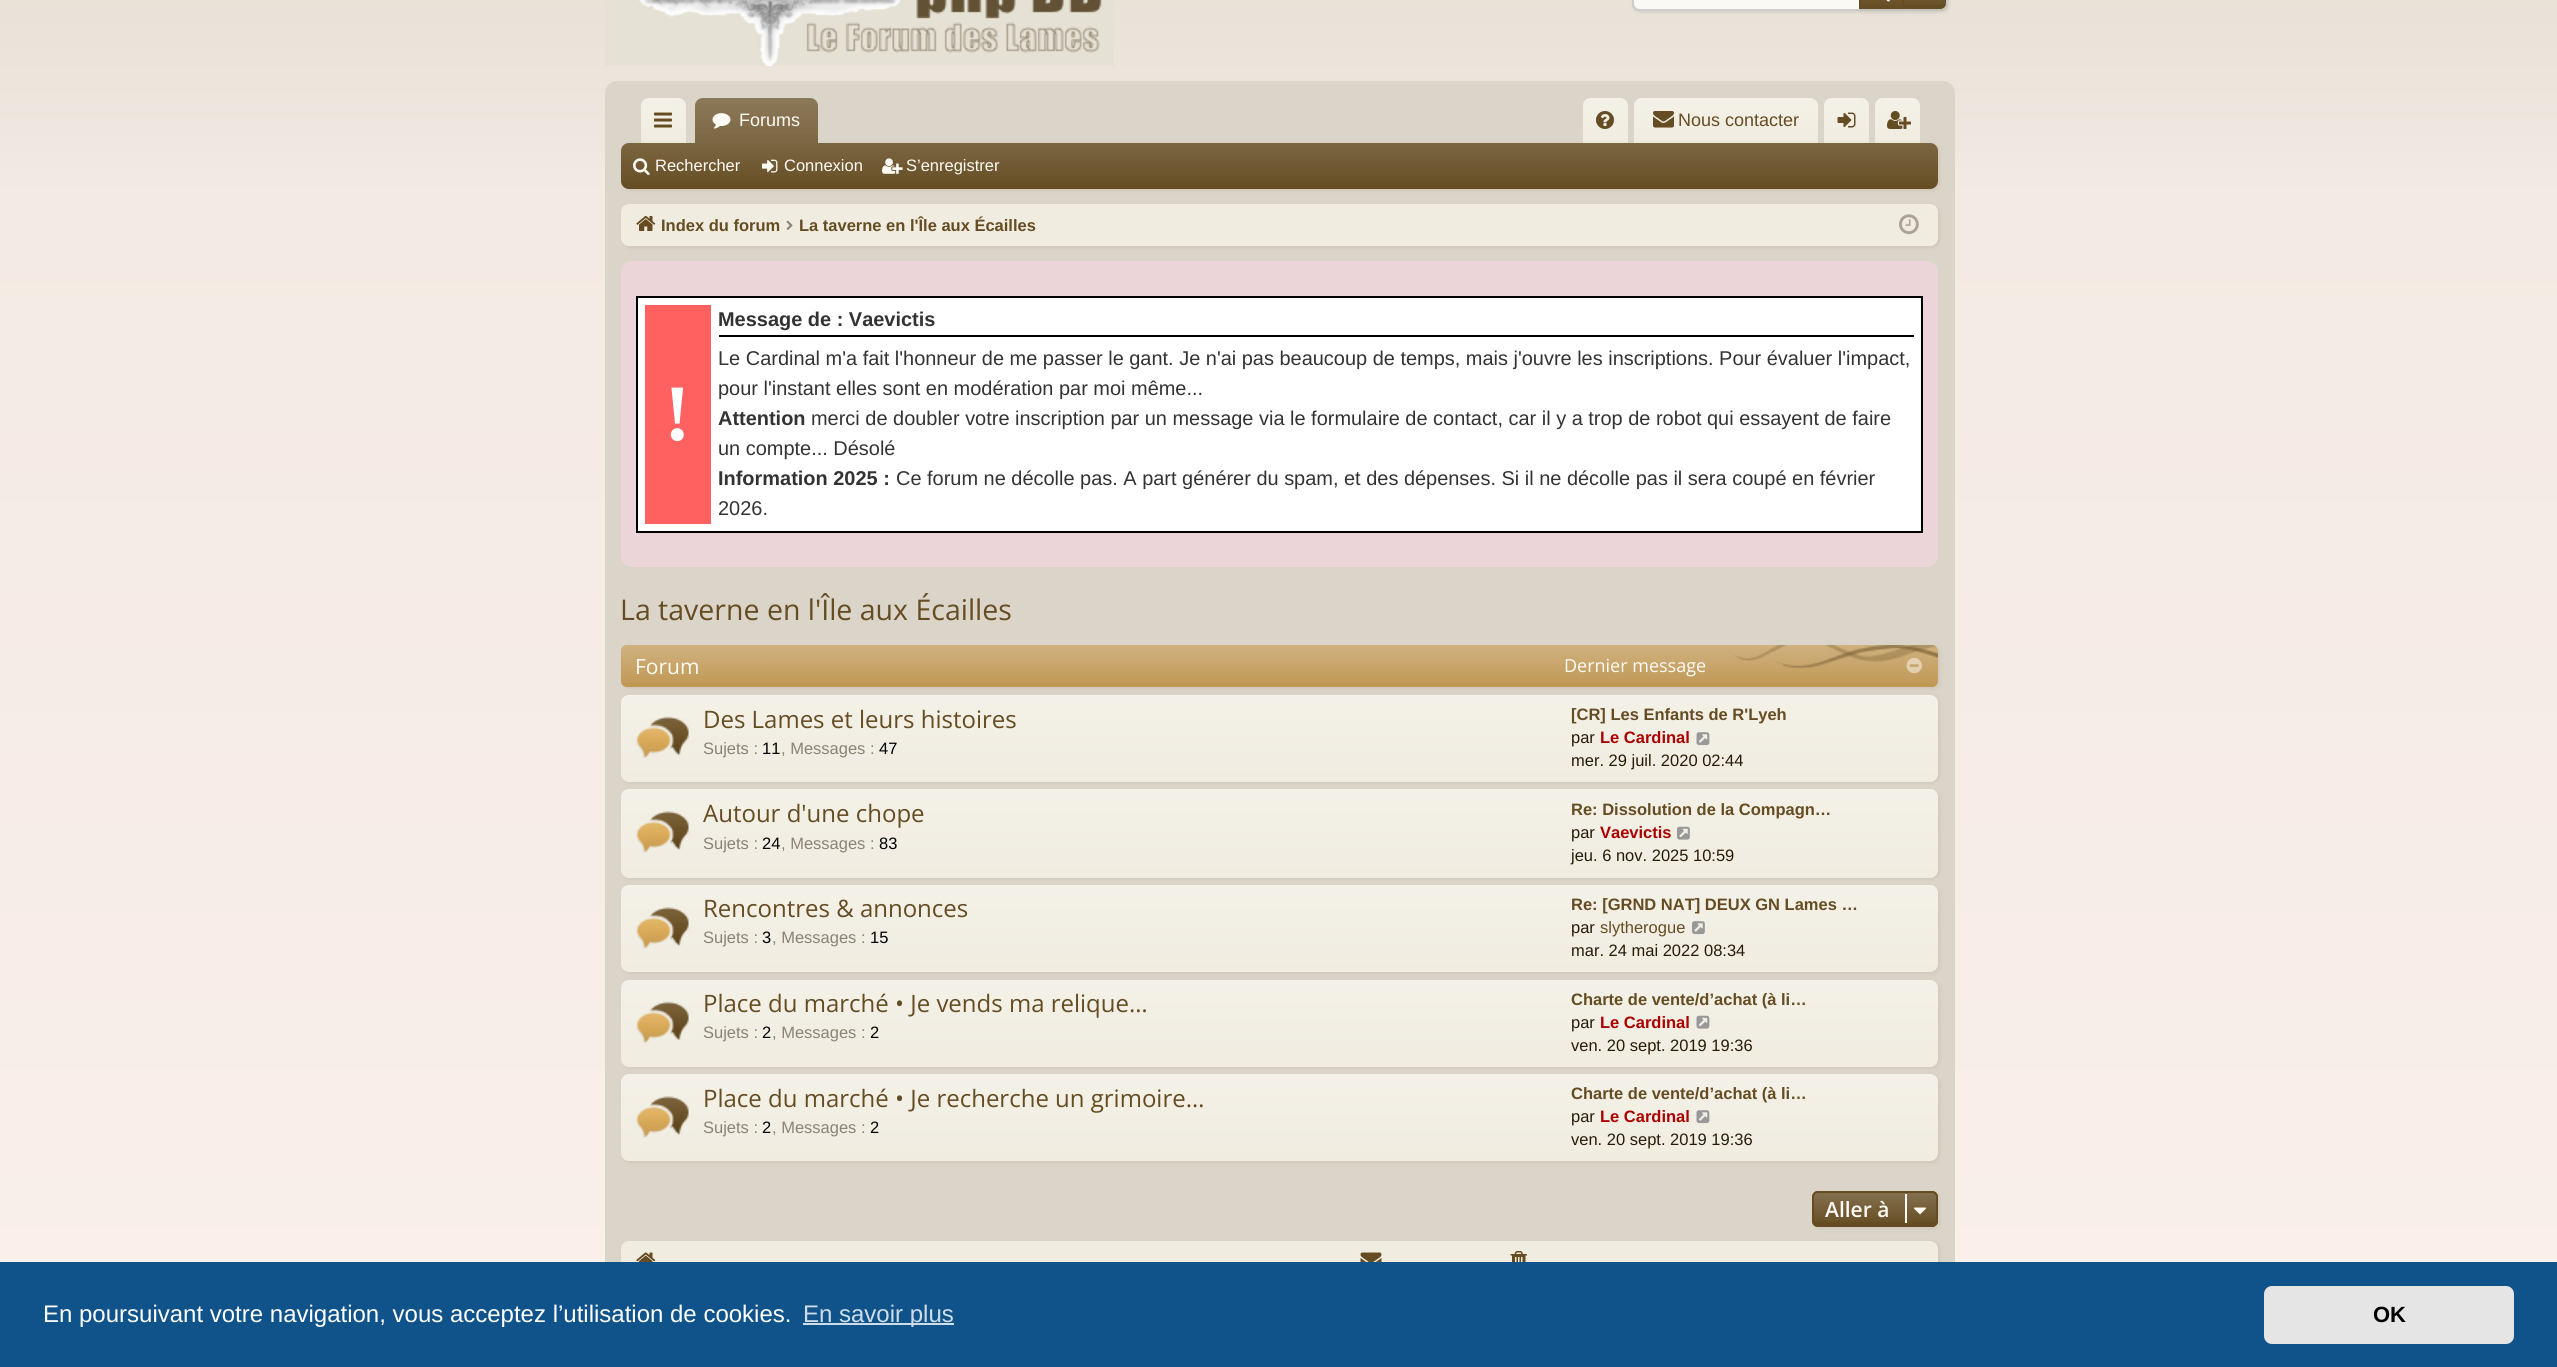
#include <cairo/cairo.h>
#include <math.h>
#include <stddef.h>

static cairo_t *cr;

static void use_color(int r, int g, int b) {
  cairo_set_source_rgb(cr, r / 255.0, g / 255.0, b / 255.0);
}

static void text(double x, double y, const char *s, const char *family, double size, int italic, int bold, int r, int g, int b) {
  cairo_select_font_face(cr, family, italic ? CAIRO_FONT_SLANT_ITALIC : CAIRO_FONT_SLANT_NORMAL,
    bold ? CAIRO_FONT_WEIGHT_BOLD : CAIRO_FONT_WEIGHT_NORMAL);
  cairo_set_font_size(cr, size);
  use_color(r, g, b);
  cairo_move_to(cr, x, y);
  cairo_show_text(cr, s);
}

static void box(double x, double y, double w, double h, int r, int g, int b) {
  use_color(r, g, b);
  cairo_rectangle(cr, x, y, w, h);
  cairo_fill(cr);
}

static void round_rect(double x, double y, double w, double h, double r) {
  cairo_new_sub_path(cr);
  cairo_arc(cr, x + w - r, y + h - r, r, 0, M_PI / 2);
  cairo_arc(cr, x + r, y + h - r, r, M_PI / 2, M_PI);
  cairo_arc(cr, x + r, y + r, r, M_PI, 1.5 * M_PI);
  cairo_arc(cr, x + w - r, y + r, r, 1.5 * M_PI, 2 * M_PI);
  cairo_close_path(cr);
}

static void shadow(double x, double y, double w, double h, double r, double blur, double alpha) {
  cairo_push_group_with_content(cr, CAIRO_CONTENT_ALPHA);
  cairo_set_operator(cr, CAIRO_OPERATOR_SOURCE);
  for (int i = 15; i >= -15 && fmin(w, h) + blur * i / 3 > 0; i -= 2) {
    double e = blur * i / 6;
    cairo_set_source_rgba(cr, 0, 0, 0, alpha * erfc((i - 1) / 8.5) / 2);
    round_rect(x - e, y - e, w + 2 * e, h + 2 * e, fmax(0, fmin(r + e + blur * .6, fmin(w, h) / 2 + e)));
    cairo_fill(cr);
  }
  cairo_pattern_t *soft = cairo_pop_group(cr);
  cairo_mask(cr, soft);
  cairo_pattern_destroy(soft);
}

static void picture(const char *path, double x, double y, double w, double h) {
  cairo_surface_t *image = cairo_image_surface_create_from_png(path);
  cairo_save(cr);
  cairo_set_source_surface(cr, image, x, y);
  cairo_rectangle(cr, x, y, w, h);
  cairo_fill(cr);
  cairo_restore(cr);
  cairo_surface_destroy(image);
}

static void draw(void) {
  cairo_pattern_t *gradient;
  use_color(255, 255, 255);
  cairo_paint(cr);
  gradient = cairo_pattern_create_linear(1279, -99, 1279, 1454);
  cairo_pattern_add_color_stop_rgba(gradient, 0, 0.886, 0.867, 0.82, 1);
  cairo_pattern_add_color_stop_rgba(gradient, 0.19, 0.953, 0.918, 0.89, 1);
  cairo_pattern_add_color_stop_rgba(gradient, 1, 0.984, 0.941, 0.918, 1);
  cairo_set_source(cr, gradient);
  cairo_pattern_destroy(gradient);
  cairo_rectangle(cr, 0, 0, 2557, 1262);
  cairo_fill(cr);
  picture("img_01.png", 605, 0, 509, 66);
  use_color(0, 0, 0);
  shadow(1634, -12, 315, 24, 6, 2, 0.1);
  round_rect(1633, -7, 313, 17, 5);
  use_color(204, 204, 204);
  cairo_stroke(cr);
  use_color(251, 249, 246);
  cairo_new_path(cr);
  cairo_move_to(cr, 1640, -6);
  cairo_line_to(cr, 1859, -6);
  cairo_line_to(cr, 1859, 9);
  cairo_line_to(cr, 1640, 9);
  cairo_curve_to(cr, 1636.5, 9, 1634, 6.5, 1634, 3);
  cairo_line_to(cr, 1634, 0);
  cairo_curve_to(cr, 1634, -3.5, 1636.5, -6, 1640, -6);
  cairo_close_path(cr);
  cairo_fill(cr);
  use_color(101, 76, 34);
  shadow(1860, -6, 45, 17, 0, 2, 0.1);
  gradient = cairo_pattern_create_linear(1881, -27, 1881, 9);
  cairo_pattern_add_color_stop_rgba(gradient, 0, 0.518, 0.439, 0.306, 1);
  cairo_pattern_add_color_stop_rgba(gradient, 1, 0.396, 0.298, 0.133, 1);
  cairo_set_source(cr, gradient);
  cairo_pattern_destroy(gradient);
  cairo_rectangle(cr, 1861, 0, 41, 9);
  cairo_fill(cr);
  box(1902, 0, 2, 9, 101, 76, 34);
  box(1859, 0, 2, 9, 101, 76, 34);
  picture("img_02.png", 1886, 0, 4, 2);
  use_color(101, 76, 34);
  shadow(1905, -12, 42, 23, 6, 2, 0.1);
  use_color(101, 76, 34);
  cairo_new_path(cr);
  cairo_move_to(cr, 1904, -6);
  cairo_line_to(cr, 1940, -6);
  cairo_curve_to(cr, 1943.5, -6, 1946, -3.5, 1946, 0);
  cairo_line_to(cr, 1946, 3);
  cairo_curve_to(cr, 1946, 6.5, 1943.5, 9, 1940, 9);
  cairo_line_to(cr, 1904, 9);
  cairo_close_path(cr);
  cairo_fill(cr);
  gradient = cairo_pattern_create_linear(1925, -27, 1925, 9);
  cairo_pattern_add_color_stop_rgba(gradient, 0, 1, 1, 1, 0.2);
  cairo_pattern_add_color_stop_rgba(gradient, 1, 1, 1, 1, 0);
  cairo_set_source(cr, gradient);
  cairo_pattern_destroy(gradient);
  cairo_rectangle(cr, 1904, 0, 42, 5);
  cairo_fill(cr);
  use_color(219, 213, 201);
  round_rect(606, 82, 1348, 1215, 11);
  cairo_fill_preserve(cr);
  cairo_stroke(cr);
  use_color(240, 236, 224);
  cairo_new_path(cr);
  cairo_move_to(cr, 649, 98);
  cairo_line_to(cr, 678, 98);
  cairo_curve_to(cr, 682.5, 98, 686, 101.5, 686, 106);
  cairo_line_to(cr, 686, 143);
  cairo_line_to(cr, 641, 143);
  cairo_line_to(cr, 641, 106);
  cairo_curve_to(cr, 641, 101.5, 644.5, 98, 649, 98);
  cairo_close_path(cr);
  cairo_fill(cr);
  gradient = cairo_pattern_create_linear(663, 98, 663, 143);
  cairo_pattern_add_color_stop_rgba(gradient, 0, 1, 1, 1, 0.25);
  cairo_pattern_add_color_stop_rgba(gradient, 1, 1, 1, 1, 0);
  cairo_set_source(cr, gradient);
  cairo_pattern_destroy(gradient);
  cairo_new_path(cr);
  cairo_move_to(cr, 649, 98);
  cairo_line_to(cr, 678, 98);
  cairo_curve_to(cr, 682.5, 98, 686, 101.5, 686, 106);
  cairo_line_to(cr, 686, 143);
  cairo_line_to(cr, 641, 143);
  cairo_line_to(cr, 641, 106);
  cairo_curve_to(cr, 641, 101.5, 644.5, 98, 649, 98);
  cairo_close_path(cr);
  cairo_fill(cr);
  picture("img_03.png", 654, 112, 18, 16);
  use_color(101, 76, 34);
  cairo_new_path(cr);
  cairo_move_to(cr, 703, 98);
  cairo_line_to(cr, 810, 98);
  cairo_curve_to(cr, 814.5, 98, 818, 101.5, 818, 106);
  cairo_line_to(cr, 818, 143);
  cairo_line_to(cr, 695, 143);
  cairo_line_to(cr, 695, 106);
  cairo_curve_to(cr, 695, 101.5, 698.5, 98, 703, 98);
  cairo_close_path(cr);
  cairo_fill(cr);
  gradient = cairo_pattern_create_linear(756, 98, 756, 143);
  cairo_pattern_add_color_stop_rgba(gradient, 0, 1, 1, 1, 0.25);
  cairo_pattern_add_color_stop_rgba(gradient, 1, 1, 1, 1, 0.15);
  cairo_set_source(cr, gradient);
  cairo_pattern_destroy(gradient);
  cairo_new_path(cr);
  cairo_move_to(cr, 703, 98);
  cairo_line_to(cr, 810, 98);
  cairo_curve_to(cr, 814.5, 98, 818, 101.5, 818, 106);
  cairo_line_to(cr, 818, 143);
  cairo_line_to(cr, 695, 143);
  cairo_line_to(cr, 695, 106);
  cairo_curve_to(cr, 695, 101.5, 698.5, 98, 703, 98);
  cairo_close_path(cr);
  cairo_fill(cr);
  picture("img_04.png", 712, 113, 19, 16);
  use_color(240, 236, 224);
  cairo_new_path(cr);
  cairo_move_to(cr, 1591, 98);
  cairo_line_to(cr, 1620, 98);
  cairo_curve_to(cr, 1624.5, 98, 1628, 101.5, 1628, 106);
  cairo_line_to(cr, 1628, 143);
  cairo_line_to(cr, 1583, 143);
  cairo_line_to(cr, 1583, 106);
  cairo_curve_to(cr, 1583, 101.5, 1586.5, 98, 1591, 98);
  cairo_close_path(cr);
  cairo_fill(cr);
  gradient = cairo_pattern_create_linear(1605, 98, 1605, 143);
  cairo_pattern_add_color_stop_rgba(gradient, 0, 1, 1, 1, 0.25);
  cairo_pattern_add_color_stop_rgba(gradient, 1, 1, 1, 1, 0);
  cairo_set_source(cr, gradient);
  cairo_pattern_destroy(gradient);
  cairo_new_path(cr);
  cairo_move_to(cr, 1591, 98);
  cairo_line_to(cr, 1620, 98);
  cairo_curve_to(cr, 1624.5, 98, 1628, 101.5, 1628, 106);
  cairo_line_to(cr, 1628, 143);
  cairo_line_to(cr, 1583, 143);
  cairo_line_to(cr, 1583, 106);
  cairo_curve_to(cr, 1583, 101.5, 1586.5, 98, 1591, 98);
  cairo_close_path(cr);
  cairo_fill(cr);
  use_color(240, 236, 224);
  cairo_new_path(cr);
  cairo_move_to(cr, 1642, 98);
  cairo_line_to(cr, 1810, 98);
  cairo_curve_to(cr, 1814.5, 98, 1818, 101.5, 1818, 106);
  cairo_line_to(cr, 1818, 143);
  cairo_line_to(cr, 1634, 143);
  cairo_line_to(cr, 1634, 106);
  cairo_curve_to(cr, 1634, 101.5, 1637.5, 98, 1642, 98);
  cairo_close_path(cr);
  cairo_fill(cr);
  gradient = cairo_pattern_create_linear(1726, 98, 1726, 143);
  cairo_pattern_add_color_stop_rgba(gradient, 0, 1, 1, 1, 0.25);
  cairo_pattern_add_color_stop_rgba(gradient, 1, 1, 1, 1, 0);
  cairo_set_source(cr, gradient);
  cairo_pattern_destroy(gradient);
  cairo_new_path(cr);
  cairo_move_to(cr, 1642, 98);
  cairo_line_to(cr, 1810, 98);
  cairo_curve_to(cr, 1814.5, 98, 1818, 101.5, 1818, 106);
  cairo_line_to(cr, 1818, 143);
  cairo_line_to(cr, 1634, 143);
  cairo_line_to(cr, 1634, 106);
  cairo_curve_to(cr, 1634, 101.5, 1637.5, 98, 1642, 98);
  cairo_close_path(cr);
  cairo_fill(cr);
  use_color(240, 236, 224);
  cairo_new_path(cr);
  cairo_move_to(cr, 1832, 98);
  cairo_line_to(cr, 1861, 98);
  cairo_curve_to(cr, 1865.5, 98, 1869, 101.5, 1869, 106);
  cairo_line_to(cr, 1869, 143);
  cairo_line_to(cr, 1824, 143);
  cairo_line_to(cr, 1824, 106);
  cairo_curve_to(cr, 1824, 101.5, 1827.5, 98, 1832, 98);
  cairo_close_path(cr);
  cairo_fill(cr);
  gradient = cairo_pattern_create_linear(1847, 98, 1847, 143);
  cairo_pattern_add_color_stop_rgba(gradient, 0, 1, 1, 1, 0.25);
  cairo_pattern_add_color_stop_rgba(gradient, 1, 1, 1, 1, 0);
  cairo_set_source(cr, gradient);
  cairo_pattern_destroy(gradient);
  cairo_new_path(cr);
  cairo_move_to(cr, 1832, 98);
  cairo_line_to(cr, 1861, 98);
  cairo_curve_to(cr, 1865.5, 98, 1869, 101.5, 1869, 106);
  cairo_line_to(cr, 1869, 143);
  cairo_line_to(cr, 1824, 143);
  cairo_line_to(cr, 1824, 106);
  cairo_curve_to(cr, 1824, 101.5, 1827.5, 98, 1832, 98);
  cairo_close_path(cr);
  cairo_fill(cr);
  use_color(240, 236, 224);
  cairo_new_path(cr);
  cairo_move_to(cr, 1883, 98);
  cairo_line_to(cr, 1912, 98);
  cairo_curve_to(cr, 1916.5, 98, 1920, 101.5, 1920, 106);
  cairo_line_to(cr, 1920, 143);
  cairo_line_to(cr, 1875, 143);
  cairo_line_to(cr, 1875, 106);
  cairo_curve_to(cr, 1875, 101.5, 1878.5, 98, 1883, 98);
  cairo_close_path(cr);
  cairo_fill(cr);
  gradient = cairo_pattern_create_linear(1898, 98, 1898, 143);
  cairo_pattern_add_color_stop_rgba(gradient, 0, 1, 1, 1, 0.25);
  cairo_pattern_add_color_stop_rgba(gradient, 1, 1, 1, 1, 0);
  cairo_set_source(cr, gradient);
  cairo_pattern_destroy(gradient);
  cairo_new_path(cr);
  cairo_move_to(cr, 1883, 98);
  cairo_line_to(cr, 1912, 98);
  cairo_curve_to(cr, 1916.5, 98, 1920, 101.5, 1920, 106);
  cairo_line_to(cr, 1920, 143);
  cairo_line_to(cr, 1875, 143);
  cairo_line_to(cr, 1875, 106);
  cairo_curve_to(cr, 1875, 101.5, 1878.5, 98, 1883, 98);
  cairo_close_path(cr);
  cairo_fill(cr);
  use_color(101, 76, 34);
  shadow(623, 144, 1317, 47, 8, 2, 0.1);
  use_color(101, 76, 34);
  round_rect(621, 143, 1317, 46, 8);
  cairo_fill(cr);
  gradient = cairo_pattern_create_linear(1280, 142, 1280, 189);
  cairo_pattern_add_color_stop_rgba(gradient, 0, 1, 1, 1, 0.15);
  cairo_pattern_add_color_stop_rgba(gradient, 1, 1, 1, 1, 0);
  cairo_set_source(cr, gradient);
  cairo_pattern_destroy(gradient);
  round_rect(621, 143, 1317, 46, 8);
  cairo_fill(cr);
  use_color(101, 76, 34);
  cairo_new_path(cr);
  cairo_move_to(cr, 698, 141);
  cairo_line_to(cr, 815, 141);
  cairo_curve_to(cr, 816.5, 141, 818, 142.5, 818, 144);
  cairo_line_to(cr, 695, 144);
  cairo_curve_to(cr, 695, 142.5, 696.5, 141, 698, 141);
  cairo_close_path(cr);
  cairo_fill(cr);
  cairo_set_source_rgba(cr, 1, 1, 1, 0.15);
  cairo_new_path(cr);
  cairo_move_to(cr, 698, 141);
  cairo_line_to(cr, 815, 141);
  cairo_curve_to(cr, 816.5, 141, 818, 142.5, 818, 144);
  cairo_line_to(cr, 695, 144);
  cairo_curve_to(cr, 695, 142.5, 696.5, 141, 698, 141);
  cairo_close_path(cr);
  cairo_fill(cr);
  picture("img_05.png", 1596, 111, 18, 18);
  picture("img_06.png", 1653, 111, 21, 17);
  picture("img_07.png", 1837, 112, 19, 16);
  picture("img_08.png", 1887, 111, 24, 18);
  picture("img_09.png", 633, 158, 17, 18);
  picture("img_10.png", 762, 159, 16, 14);
  picture("img_11.png", 882, 158, 21, 16);
  use_color(101, 76, 34);
  shadow(623, 206, 1317, 42, 8, 2, 0.1);
  use_color(240, 236, 224);
  round_rect(621, 204, 1317, 42, 8);
  cairo_fill(cr);
  picture("img_12.png", 636, 216, 20, 15);
  picture("img_13.png", 786, 220, 7, 10);
  picture("img_14.png", 1899, 214, 20, 21);
  use_color(236, 213, 216);
  round_rect(621, 261, 1317, 306, 11);
  cairo_fill(cr);
  use_color(255, 255, 255);
  cairo_rectangle(cr, 637, 297, 1285, 235);
  cairo_fill_preserve(cr);
  use_color(0, 0, 0);
  cairo_stroke(cr);
  box(719, 335, 1195, 2, 0, 0, 0);
  box(645, 305, 66, 219, 255, 96, 96);
  use_color(101, 76, 34);
  shadow(623, 696, 1317, 87, 8, 2, 0.1);
  use_color(240, 236, 224);
  round_rect(621, 695, 1317, 87, 8);
  cairo_fill(cr);
  gradient = cairo_pattern_create_linear(1280, 694, 1280, 782);
  cairo_pattern_add_color_stop_rgba(gradient, 0, 1, 1, 1, 0.25);
  cairo_pattern_add_color_stop_rgba(gradient, 1, 1, 1, 1, 0);
  cairo_set_source(cr, gradient);
  cairo_pattern_destroy(gradient);
  round_rect(621, 695, 1317, 87, 8);
  cairo_fill(cr);
  use_color(101, 76, 34);
  shadow(623, 647, 1317, 42, 6, 2, 0.1);
  use_color(192, 152, 85);
  round_rect(621, 645, 1317, 42, 6);
  cairo_fill(cr);
  picture("img_15.png", 621, 645, 1317, 38);
  picture("img_16.png", 1906, 657, 16, 17);
  picture("img_17.png", 636, 716, 53, 42);
  picture("img_18.png", 1696, 732, 14, 14);
  use_color(101, 76, 34);
  shadow(623, 791, 1317, 88, 8, 2, 0.1);
  use_color(240, 236, 224);
  round_rect(621, 789, 1317, 89, 8);
  cairo_fill(cr);
  gradient = cairo_pattern_create_linear(1280, 789, 1280, 878);
  cairo_pattern_add_color_stop_rgba(gradient, 0, 1, 1, 1, 0.25);
  cairo_pattern_add_color_stop_rgba(gradient, 1, 1, 1, 1, 0);
  cairo_set_source(cr, gradient);
  cairo_pattern_destroy(gradient);
  round_rect(621, 789, 1317, 89, 8);
  cairo_fill(cr);
  picture("img_19.png", 636, 811, 53, 42);
  picture("img_20.png", 1677, 826, 13, 14);
  use_color(101, 76, 34);
  shadow(623, 887, 1317, 87, 8, 2, 0.1);
  use_color(240, 236, 224);
  round_rect(621, 885, 1317, 87, 8);
  cairo_fill(cr);
  gradient = cairo_pattern_create_linear(1280, 885, 1280, 972);
  cairo_pattern_add_color_stop_rgba(gradient, 0, 1, 1, 1, 0.25);
  cairo_pattern_add_color_stop_rgba(gradient, 1, 1, 1, 1, 0);
  cairo_set_source(cr, gradient);
  cairo_pattern_destroy(gradient);
  round_rect(621, 885, 1317, 87, 8);
  cairo_fill(cr);
  picture("img_21.png", 636, 907, 53, 42);
  picture("img_22.png", 1692, 921, 13, 14);
  use_color(101, 76, 34);
  shadow(623, 981, 1317, 87, 8, 2, 0.1);
  use_color(240, 236, 224);
  round_rect(621, 980, 1317, 87, 8);
  cairo_fill(cr);
  gradient = cairo_pattern_create_linear(1280, 980, 1280, 1067);
  cairo_pattern_add_color_stop_rgba(gradient, 0, 1, 1, 1, 0.25);
  cairo_pattern_add_color_stop_rgba(gradient, 1, 1, 1, 1, 0);
  cairo_set_source(cr, gradient);
  cairo_pattern_destroy(gradient);
  round_rect(621, 980, 1317, 87, 8);
  cairo_fill(cr);
  picture("img_23.png", 636, 1001, 53, 42);
  picture("img_24.png", 1696, 1015, 14, 14);
  use_color(101, 76, 34);
  shadow(623, 1076, 1317, 87, 8, 2, 0.1);
  use_color(240, 236, 224);
  round_rect(621, 1074, 1317, 87, 8);
  cairo_fill(cr);
  gradient = cairo_pattern_create_linear(1280, 1074, 1280, 1161);
  cairo_pattern_add_color_stop_rgba(gradient, 0, 1, 1, 1, 0.25);
  cairo_pattern_add_color_stop_rgba(gradient, 1, 1, 1, 1, 0);
  cairo_set_source(cr, gradient);
  cairo_pattern_destroy(gradient);
  round_rect(621, 1074, 1317, 87, 8);
  cairo_fill(cr);
  picture("img_21.png", 636, 1096, 53, 42);
  picture("img_25.png", 1696, 1110, 14, 14);
  use_color(101, 76, 34);
  shadow(1814, 1193, 126, 36, 6, 2, 0.1);
  use_color(101, 76, 34);
  round_rect(1812, 1191, 126, 36, 6);
  cairo_fill(cr);
  cairo_save(cr);
  round_rect(1812, 1191, 126, 36, 6);
  cairo_clip(cr);
  gradient = cairo_pattern_create_linear(1875, 1193, 1875, 1226);
  cairo_pattern_add_color_stop_rgba(gradient, 0, 1, 1, 1, 0.2);
  cairo_pattern_add_color_stop_rgba(gradient, 1, 1, 1, 1, 0);
  cairo_set_source(cr, gradient);
  cairo_pattern_destroy(gradient);
  cairo_rectangle(cr, 1812, 1193, 126, 29);
  cairo_fill(cr);
  cairo_restore(cr);
  round_rect(1813, 1192, 124, 34, 5);
  cairo_stroke(cr);
  box(1905, 1194, 2, 29, 254, 251, 245);
  picture("img_26.png", 1914, 1207, 12, 8);
  use_color(101, 76, 34);
  shadow(623, 1242, 1317, 41, 8, 2, 0.1);
  use_color(240, 236, 224);
  round_rect(621, 1241, 1317, 40, 8);
  cairo_fill(cr);
  picture("img_27.png", 636, 1252, 20, 10);
  picture("img_28.png", 1360, 1252, 22, 10);
  picture("img_29.png", 1510, 1251, 17, 11);
  box(0, 1262, 2557, 105, 15, 83, 138);
  box(803, 1323, 151, 2, 207, 221, 232);
  use_color(229, 229, 229);
  round_rect(2264, 1286, 250, 58, 8);
  cairo_fill(cr);
  text(739, 126, "Forums", "Liberation Sans", 18, 0, 0, 254, 251, 245);
  text(1678, 126, "Nous contacter", "Liberation Sans", 18, 0, 0, 101, 76, 34);
  text(655, 171, "Rechercher", "Liberation Sans", 16.5, 0, 0, 254, 251, 245);
  text(784, 171, "Connexion", "Liberation Sans", 16.5, 0, 0, 254, 251, 245);
  text(906, 171, "S’enregistrer", "Liberation Sans", 16.5, 0, 0, 254, 251, 245);
  text(661, 231, "Index du forum", "Liberation Sans", 16.5, 0, 1, 101, 76, 34);
  text(799, 231, "La taverne en l'Île aux Écailles", "Liberation Sans", 16.5, 0, 1, 101, 76, 34);
  text(718, 326, "Message de : Vaevictis", "Liberation Sans", 19.95, 0, 1, 51, 51, 51);
  text(664, 440, "!", "Liberation Serif", 80, 0, 1, 255, 255, 255);
  text(718, 365, "Le Cardinal m'a fait l'honneur de me passer le gant. Je n'ai pas beaucoup de temps, mais j'ouvre les inscriptions. Pour évaluer l'impact,", "Liberation Sans", 19.95, 0, 0, 51, 51, 51);
  text(718, 395, "pour l'instant elles sont en modération par moi même...", "Liberation Sans", 19.95, 0, 0, 51, 51, 51);
  text(718, 425, "Attention", "Liberation Sans", 19.95, 0, 1, 51, 51, 51);
  text(811, 425, "merci de doubler votre inscription par un message via le formulaire de contact, car il y a trop de robot qui essayent de faire", "Liberation Sans", 19.95, 0, 0, 51, 51, 51);
  text(718, 455, "un compte... Désolé", "Liberation Sans", 19.95, 0, 0, 51, 51, 51);
  text(718, 485, "Information 2025 :", "Liberation Sans", 19.95, 0, 1, 51, 51, 51);
  text(896, 485, "Ce forum ne décolle pas. A part générer du spam, et des dépenses. Si il ne décolle pas il sera coupé en février", "Liberation Sans", 19.95, 0, 0, 51, 51, 51);
  text(718, 515, "2026.", "Liberation Sans", 19.95, 0, 0, 51, 51, 51);
  text(620, 620, "La taverne en l'Île aux Écailles", "Open Sans", 28.5, 0, 0, 101, 76, 34);
  text(635, 674, "Forum", "Open Sans", 21, 0, 0, 254, 251, 245);
  text(1564, 672, "Dernier message", "Open Sans", 18, 0, 0, 254, 251, 245);
  text(703, 728, "Des Lames et leurs histoires", "Open Sans", 24, 0, 0, 101, 76, 34);
  text(703, 754, "Sujets :", "Liberation Sans", 16.5, 0, 0, 139, 131, 116);
  text(762, 754, "11", "Liberation Sans", 16.5, 0, 0, 0, 0, 0);
  text(781, 754, ", Messages :", "Liberation Sans", 16.5, 0, 0, 139, 131, 116);
  text(879, 754, "47", "Liberation Sans", 16.5, 0, 0, 0, 0, 0);
  text(1571, 720, "[CR] Les Enfants de R'Lyeh", "Liberation Sans", 16.5, 0, 1, 101, 76, 34);
  text(1571, 743, "par", "Liberation Sans", 16.5, 0, 0, 39, 27, 8);
  text(1600, 743, "Le Cardinal", "Liberation Sans", 16.5, 0, 1, 170, 0, 0);
  text(1571, 766, "mer. 29 juil. 2020 02:44", "Liberation Sans", 16.5, 0, 0, 39, 27, 8);
  text(703, 822, "Autour d'une chope", "Open Sans", 24, 0, 0, 101, 76, 34);
  text(703, 849, "Sujets :", "Liberation Sans", 16.5, 0, 0, 139, 131, 116);
  text(762, 849, "24", "Liberation Sans", 16.5, 0, 0, 0, 0, 0);
  text(781, 849, ", Messages :", "Liberation Sans", 16.5, 0, 0, 139, 131, 116);
  text(879, 849, "83", "Liberation Sans", 16.5, 0, 0, 0, 0, 0);
  text(1571, 815, "Re: Dissolution de la Compagn…", "Liberation Sans", 16.5, 0, 1, 101, 76, 34);
  text(1571, 838, "par", "Liberation Sans", 16.5, 0, 0, 39, 27, 8);
  text(1600, 838, "Vaevictis", "Liberation Sans", 16.5, 0, 1, 170, 0, 0);
  text(1571, 861, "jeu. 6 nov. 2025 10:59", "Liberation Sans", 16.5, 0, 0, 39, 27, 8);
  text(703, 917, "Rencontres & annonces", "Open Sans", 24, 0, 0, 101, 76, 34);
  text(703, 943, "Sujets :", "Liberation Sans", 16.5, 0, 0, 139, 131, 116);
  text(762, 943, "3", "Liberation Sans", 16.5, 0, 0, 0, 0, 0);
  text(772, 943, ", Messages :", "Liberation Sans", 16.5, 0, 0, 139, 131, 116);
  text(870, 943, "15", "Liberation Sans", 16.5, 0, 0, 0, 0, 0);
  text(1571, 910, "Re: [GRND NAT] DEUX GN Lames …", "Liberation Sans", 16.5, 0, 1, 101, 76, 34);
  text(1571, 933, "par", "Liberation Sans", 16.5, 0, 0, 39, 27, 8);
  text(1600, 933, "slytherogue", "Liberation Sans", 16.5, 0, 0, 101, 76, 34);
  text(1571, 956, "mar. 24 mai 2022 08:34", "Liberation Sans", 16.5, 0, 0, 39, 27, 8);
  text(703, 1012, "Place du marché • Je vends ma relique…", "Open Sans", 24, 0, 0, 101, 76, 34);
  text(703, 1038, "Sujets :", "Liberation Sans", 16.5, 0, 0, 139, 131, 116);
  text(762, 1038, "2", "Liberation Sans", 16.5, 0, 0, 0, 0, 0);
  text(772, 1038, ", Messages :", "Liberation Sans", 16.5, 0, 0, 139, 131, 116);
  text(870, 1038, "2", "Liberation Sans", 16.5, 0, 0, 0, 0, 0);
  text(1571, 1005, "Charte de vente/d’achat (à li…", "Liberation Sans", 16.5, 0, 1, 101, 76, 34);
  text(1571, 1028, "par", "Liberation Sans", 16.5, 0, 0, 39, 27, 8);
  text(1600, 1028, "Le Cardinal", "Liberation Sans", 16.5, 0, 1, 170, 0, 0);
  text(1571, 1051, "ven. 20 sept. 2019 19:36", "Liberation Sans", 16.5, 0, 0, 39, 27, 8);
  text(703, 1107, "Place du marché • Je recherche un grimoire…", "Open Sans", 24, 0, 0, 101, 76, 34);
  text(703, 1133, "Sujets :", "Liberation Sans", 16.5, 0, 0, 139, 131, 116);
  text(762, 1133, "2", "Liberation Sans", 16.5, 0, 0, 0, 0, 0);
  text(772, 1133, ", Messages :", "Liberation Sans", 16.5, 0, 0, 139, 131, 116);
  text(870, 1133, "2", "Liberation Sans", 16.5, 0, 0, 0, 0, 0);
  text(1571, 1099, "Charte de vente/d’achat (à li…", "Liberation Sans", 16.5, 0, 1, 101, 76, 34);
  text(1571, 1122, "par", "Liberation Sans", 16.5, 0, 0, 39, 27, 8);
  text(1600, 1122, "Le Cardinal", "Liberation Sans", 16.5, 0, 1, 170, 0, 0);
  text(1571, 1145, "ven. 20 sept. 2019 19:36", "Liberation Sans", 16.5, 0, 0, 39, 27, 8);
  text(1825, 1217, "Aller à", "Open Sans SemiBold", 21, 0, 0, 254, 251, 245);
  text(43, 1322, "En poursuivant votre navigation, vous acceptez l’utilisation de cookies.", "Liberation Sans", 24, 0, 0, 255, 255, 255);
  text(803, 1322, "En savoir plus", "Liberation Sans", 24, 0, 0, 207, 221, 232);
  text(2373, 1322, "OK", "Liberation Sans", 22, 0, 1, 0, 0, 0);
}

int main(void) {
  cairo_surface_t *surface = cairo_image_surface_create(CAIRO_FORMAT_RGB24, 2557, 1367);
  cr = cairo_create(surface);
  cairo_font_options_t *options = cairo_font_options_create();
  cairo_font_options_set_hint_metrics(options, CAIRO_HINT_METRICS_OFF);
  cairo_font_options_set_hint_style(options, CAIRO_HINT_STYLE_NONE);
  cairo_set_font_options(cr, options);
  cairo_set_miter_limit(cr, 4);
  draw();
  cairo_surface_write_to_png(surface, "out.png");
  cairo_font_options_destroy(options);
  cairo_destroy(cr);
  cairo_surface_destroy(surface);
  return 0;
}
